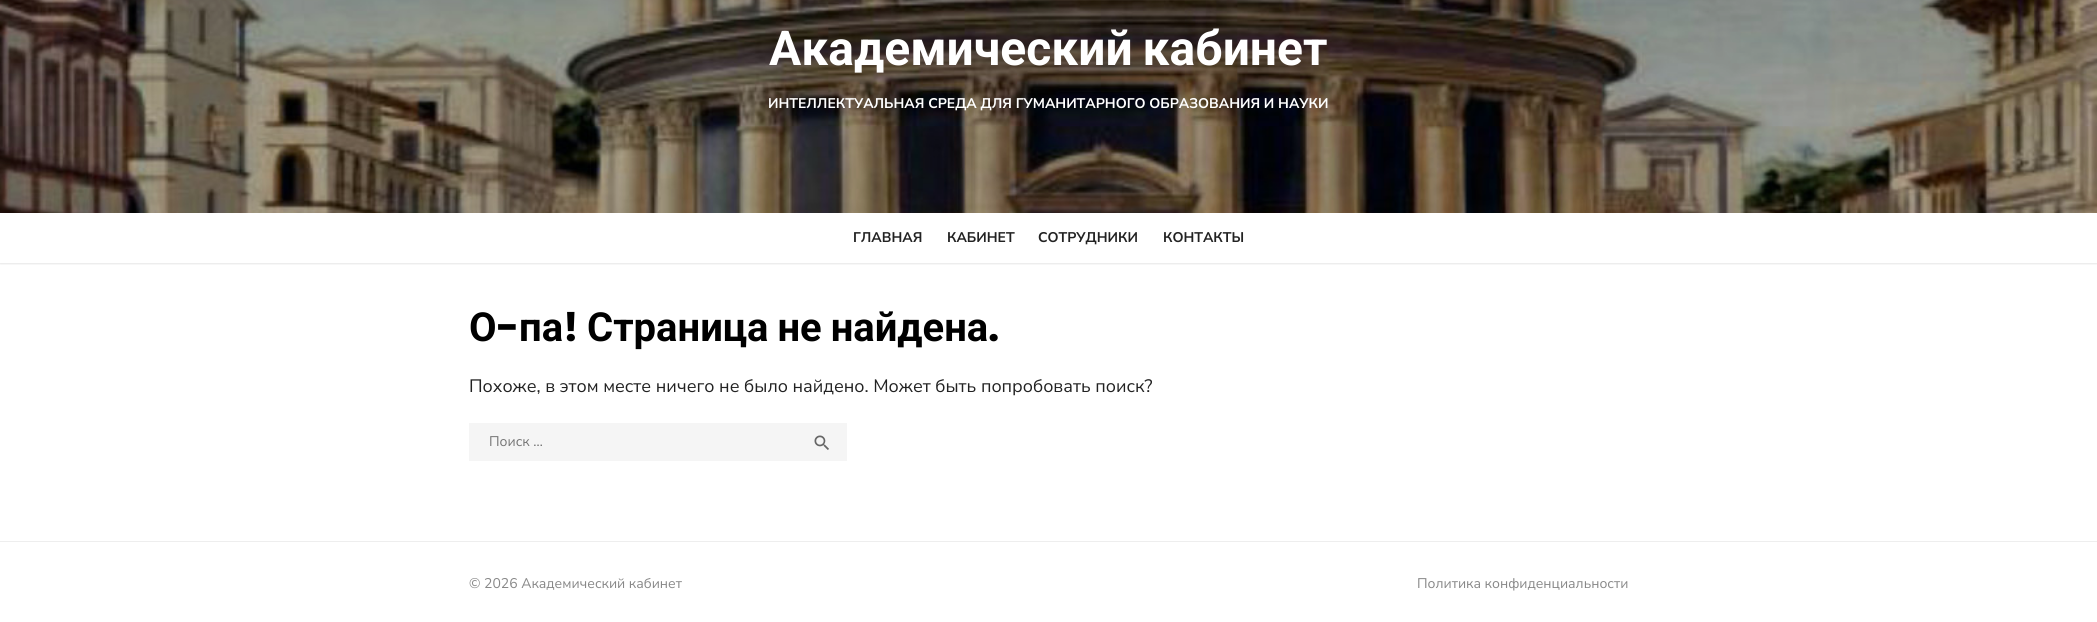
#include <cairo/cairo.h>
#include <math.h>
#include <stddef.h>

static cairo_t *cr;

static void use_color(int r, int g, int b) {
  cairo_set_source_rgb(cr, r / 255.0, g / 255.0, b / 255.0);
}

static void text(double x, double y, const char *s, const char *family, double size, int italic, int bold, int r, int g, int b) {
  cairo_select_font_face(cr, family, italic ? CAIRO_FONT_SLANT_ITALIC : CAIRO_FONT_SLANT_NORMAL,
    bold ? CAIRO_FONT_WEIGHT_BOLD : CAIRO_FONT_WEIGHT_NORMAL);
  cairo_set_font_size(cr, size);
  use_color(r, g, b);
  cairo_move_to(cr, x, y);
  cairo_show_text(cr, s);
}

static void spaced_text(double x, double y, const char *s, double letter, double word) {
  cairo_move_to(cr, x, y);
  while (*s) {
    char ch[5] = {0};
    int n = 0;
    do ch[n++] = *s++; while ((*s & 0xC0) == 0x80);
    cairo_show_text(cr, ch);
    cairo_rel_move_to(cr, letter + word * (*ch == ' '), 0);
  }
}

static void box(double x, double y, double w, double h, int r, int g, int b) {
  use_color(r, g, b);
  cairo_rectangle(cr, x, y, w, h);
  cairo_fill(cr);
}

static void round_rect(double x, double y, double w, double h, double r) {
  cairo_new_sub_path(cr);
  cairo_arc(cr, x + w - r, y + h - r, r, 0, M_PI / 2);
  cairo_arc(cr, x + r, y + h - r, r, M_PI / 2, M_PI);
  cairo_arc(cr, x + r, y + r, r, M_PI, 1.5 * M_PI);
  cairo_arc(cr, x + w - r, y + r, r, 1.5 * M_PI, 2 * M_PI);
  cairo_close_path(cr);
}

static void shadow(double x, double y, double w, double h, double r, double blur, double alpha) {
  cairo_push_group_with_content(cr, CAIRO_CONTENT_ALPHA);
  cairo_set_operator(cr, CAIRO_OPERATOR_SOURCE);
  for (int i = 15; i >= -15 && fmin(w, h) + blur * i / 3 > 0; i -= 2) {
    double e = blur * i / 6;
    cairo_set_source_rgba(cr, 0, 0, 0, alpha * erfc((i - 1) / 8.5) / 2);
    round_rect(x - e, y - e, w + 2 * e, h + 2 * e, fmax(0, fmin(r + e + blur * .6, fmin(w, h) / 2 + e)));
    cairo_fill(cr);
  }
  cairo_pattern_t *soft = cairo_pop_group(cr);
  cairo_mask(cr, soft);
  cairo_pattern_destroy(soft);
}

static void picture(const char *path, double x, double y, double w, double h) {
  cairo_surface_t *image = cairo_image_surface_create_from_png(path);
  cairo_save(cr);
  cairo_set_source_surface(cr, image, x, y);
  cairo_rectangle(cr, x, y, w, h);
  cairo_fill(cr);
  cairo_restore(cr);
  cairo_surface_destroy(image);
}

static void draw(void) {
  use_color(255, 255, 255);
  cairo_paint(cr);
  cairo_save(cr);
  cairo_rectangle(cr, 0, 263, 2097, 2);
  cairo_clip(cr);
  use_color(0, 0, 0);
  shadow(0, 214, 2097, 50, 0, 1, 0.1);
  cairo_restore(cr);
  picture("img_01.png", 0, 0, 2097, 213);
  box(469, 423, 378, 38, 245, 245, 245);
  picture("img_02.png", 814, 435, 15, 15);
  box(0, 541, 2097, 1, 238, 238, 238);
  cairo_select_font_face(cr, "Roboto", CAIRO_FONT_SLANT_NORMAL, CAIRO_FONT_WEIGHT_BOLD);
  cairo_set_font_size(cr, 48);
  use_color(255, 255, 255);
  spaced_text(769, 65, "Академический кабинет", 0, -2);
  text(768, 108, "ИНТЕЛЛЕКТУАЛЬНАЯ СРЕДА ДЛЯ ГУМАНИТАРНОГО ОБРАЗОВАНИЯ И НАУКИ", "Nunito Sans", 14, 0, 1, 255, 255, 255);
  text(853, 242, "ГЛАВНАЯ", "Nunito Sans", 14, 0, 1, 34, 34, 34);
  text(947, 242, "КАБИНЕТ", "Nunito Sans", 14, 0, 1, 34, 34, 34);
  text(1038, 242, "СОТРУДНИКИ", "Nunito Sans", 14, 0, 1, 34, 34, 34);
  text(1163, 242, "КОНТАКТЫ", "Nunito Sans", 14, 0, 1, 34, 34, 34);
  text(469, 341, "О", "Roboto", 40, 0, 1, 0, 0, 0);
  text(496, 341, "-", "Poppins", 40, 0, 1, 0, 0, 0);
  text(519, 341, "па", "Roboto", 40, 0, 1, 0, 0, 0);
  text(563, 341, "!", "Poppins", 40, 0, 1, 0, 0, 0);
  cairo_select_font_face(cr, "Roboto", CAIRO_FONT_SLANT_NORMAL, CAIRO_FONT_WEIGHT_BOLD);
  spaced_text(587, 341, "Страница не найдена", 0, -1);
  text(988, 341, ".", "Poppins", 40, 0, 1, 0, 0, 0);
  text(469, 392, "Похоже, в этом месте ничего не было найдено. Может быть попробовать поиск?", "Nunito Sans", 18, 0, 0, 34, 34, 34);
  text(489, 446, "Поиск …", "Nunito Sans", 14, 0, 0, 117, 117, 117);
  text(469, 588, "© 2026 Академический кабинет", "Nunito Sans", 14, 0, 0, 136, 136, 136);
  text(1417, 588, "Политика конфиденциальности", "Nunito Sans", 14, 0, 0, 136, 136, 136);
}

int main(void) {
  cairo_surface_t *surface = cairo_image_surface_create(CAIRO_FORMAT_RGB24, 2097, 622);
  cr = cairo_create(surface);
  cairo_font_options_t *options = cairo_font_options_create();
  cairo_font_options_set_hint_metrics(options, CAIRO_HINT_METRICS_OFF);
  cairo_font_options_set_hint_style(options, CAIRO_HINT_STYLE_NONE);
  cairo_set_font_options(cr, options);
  cairo_set_miter_limit(cr, 4);
  draw();
  cairo_surface_write_to_png(surface, "out.png");
  cairo_font_options_destroy(options);
  cairo_destroy(cr);
  cairo_surface_destroy(surface);
  return 0;
}
